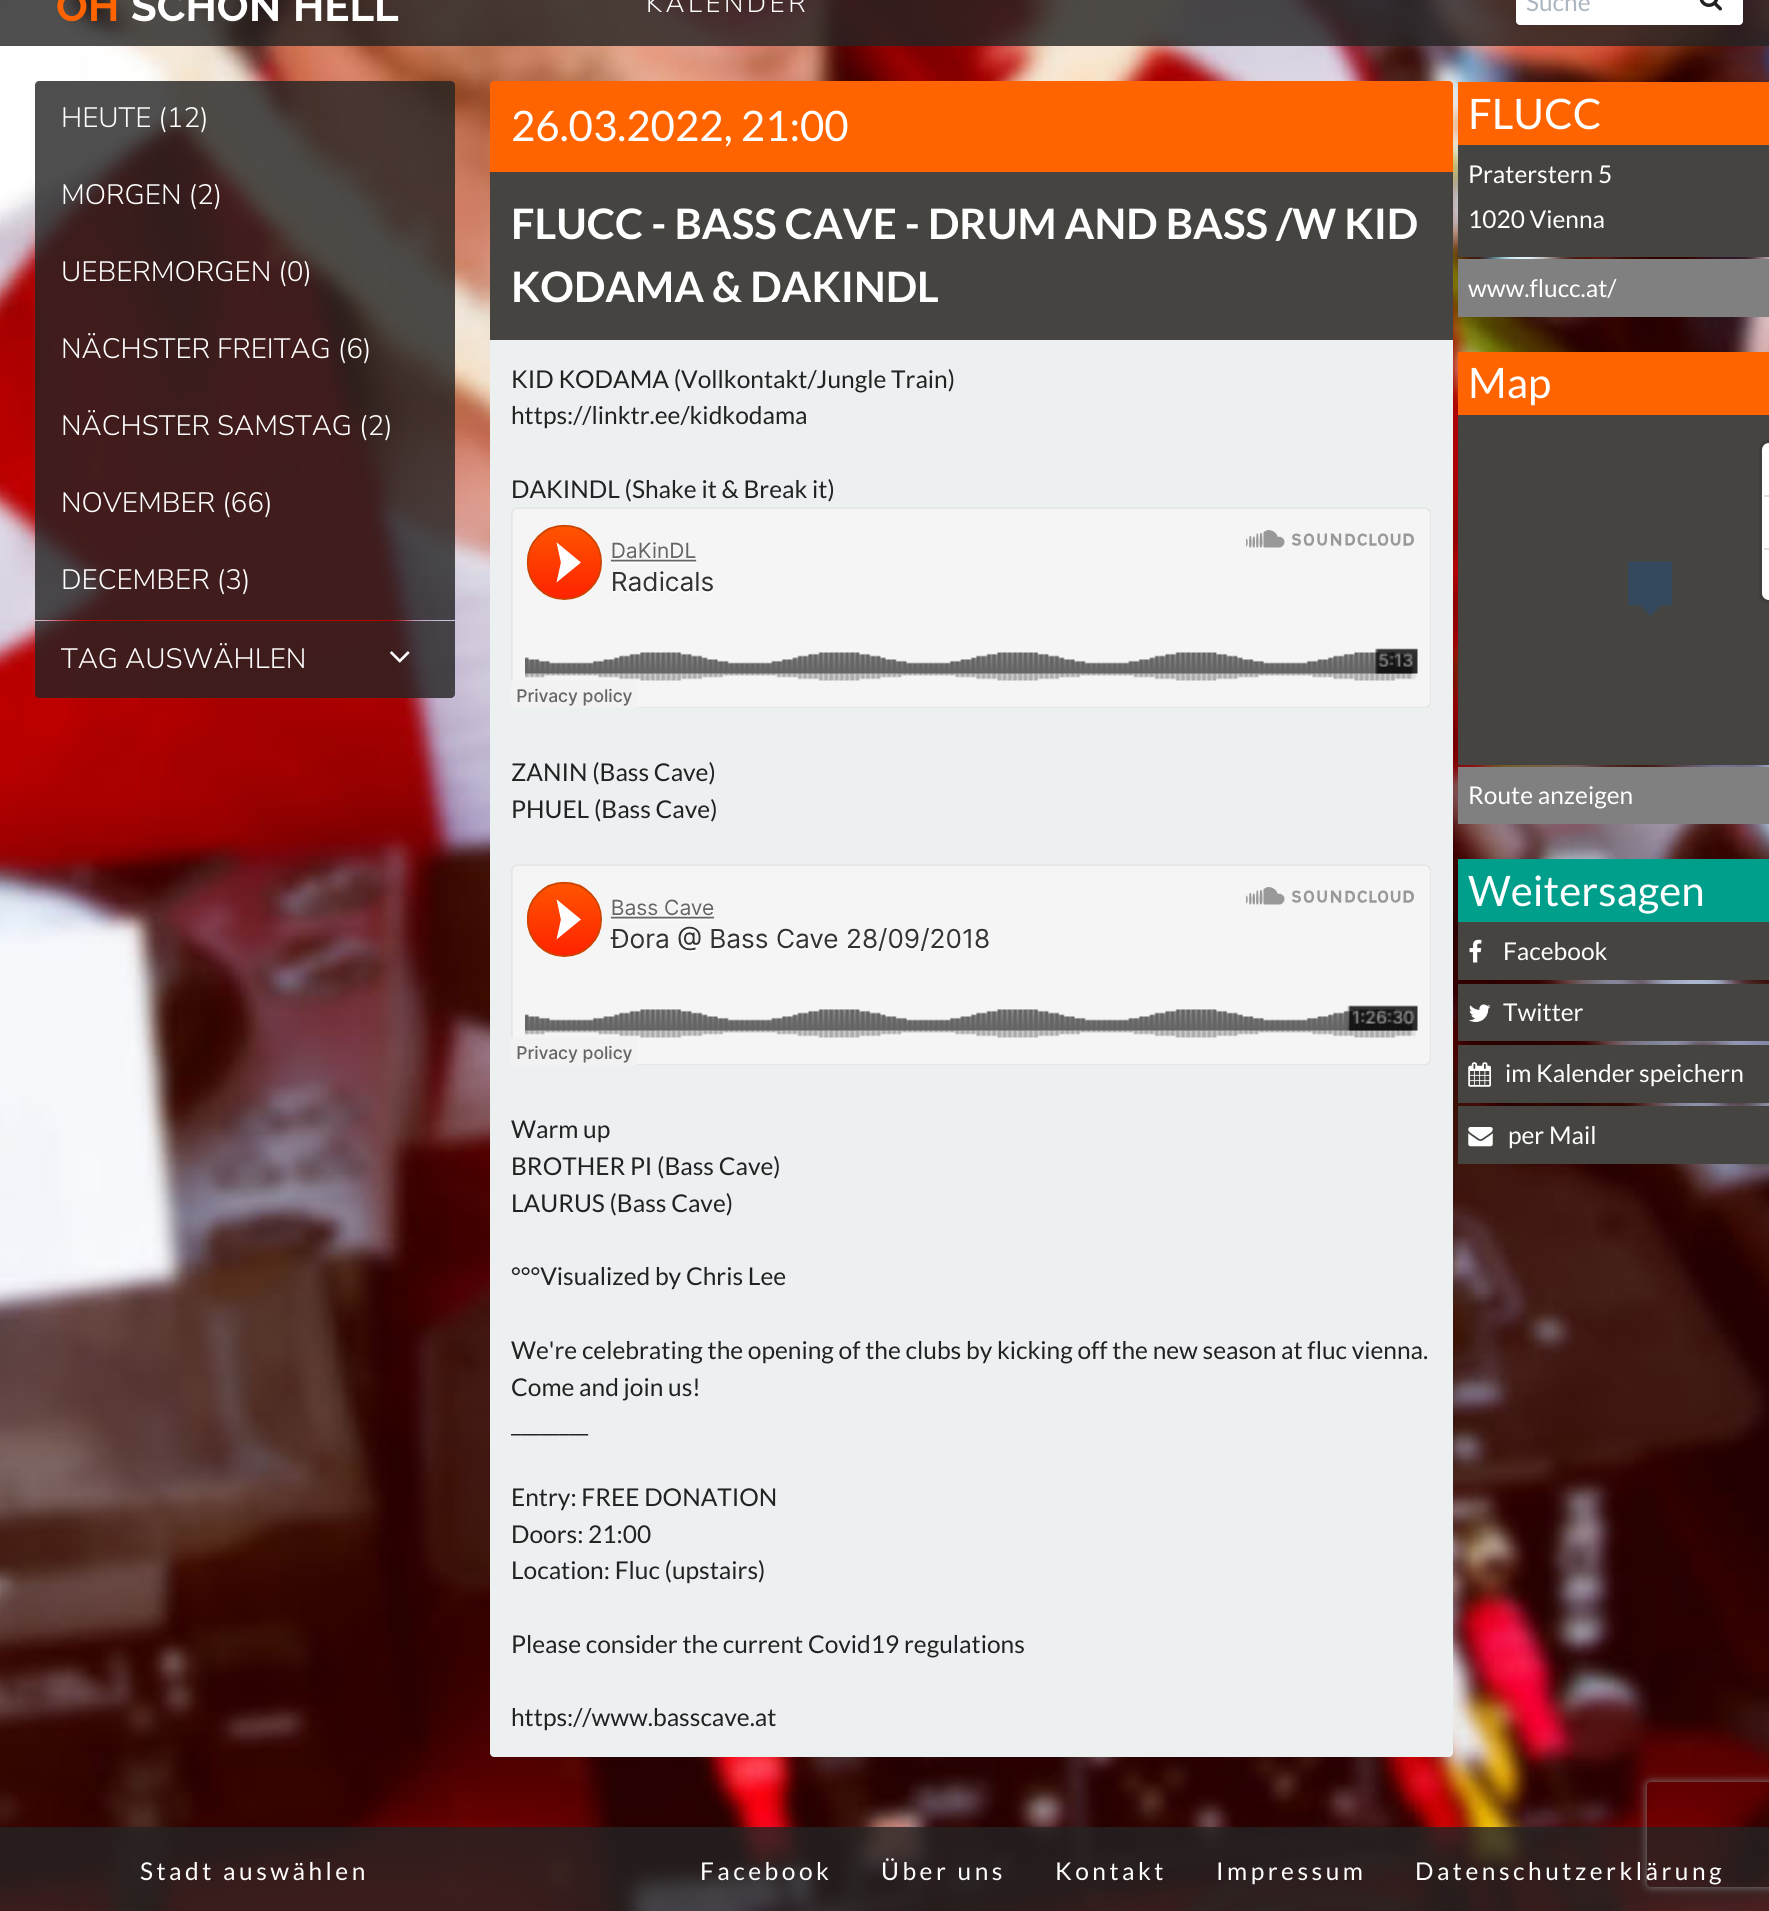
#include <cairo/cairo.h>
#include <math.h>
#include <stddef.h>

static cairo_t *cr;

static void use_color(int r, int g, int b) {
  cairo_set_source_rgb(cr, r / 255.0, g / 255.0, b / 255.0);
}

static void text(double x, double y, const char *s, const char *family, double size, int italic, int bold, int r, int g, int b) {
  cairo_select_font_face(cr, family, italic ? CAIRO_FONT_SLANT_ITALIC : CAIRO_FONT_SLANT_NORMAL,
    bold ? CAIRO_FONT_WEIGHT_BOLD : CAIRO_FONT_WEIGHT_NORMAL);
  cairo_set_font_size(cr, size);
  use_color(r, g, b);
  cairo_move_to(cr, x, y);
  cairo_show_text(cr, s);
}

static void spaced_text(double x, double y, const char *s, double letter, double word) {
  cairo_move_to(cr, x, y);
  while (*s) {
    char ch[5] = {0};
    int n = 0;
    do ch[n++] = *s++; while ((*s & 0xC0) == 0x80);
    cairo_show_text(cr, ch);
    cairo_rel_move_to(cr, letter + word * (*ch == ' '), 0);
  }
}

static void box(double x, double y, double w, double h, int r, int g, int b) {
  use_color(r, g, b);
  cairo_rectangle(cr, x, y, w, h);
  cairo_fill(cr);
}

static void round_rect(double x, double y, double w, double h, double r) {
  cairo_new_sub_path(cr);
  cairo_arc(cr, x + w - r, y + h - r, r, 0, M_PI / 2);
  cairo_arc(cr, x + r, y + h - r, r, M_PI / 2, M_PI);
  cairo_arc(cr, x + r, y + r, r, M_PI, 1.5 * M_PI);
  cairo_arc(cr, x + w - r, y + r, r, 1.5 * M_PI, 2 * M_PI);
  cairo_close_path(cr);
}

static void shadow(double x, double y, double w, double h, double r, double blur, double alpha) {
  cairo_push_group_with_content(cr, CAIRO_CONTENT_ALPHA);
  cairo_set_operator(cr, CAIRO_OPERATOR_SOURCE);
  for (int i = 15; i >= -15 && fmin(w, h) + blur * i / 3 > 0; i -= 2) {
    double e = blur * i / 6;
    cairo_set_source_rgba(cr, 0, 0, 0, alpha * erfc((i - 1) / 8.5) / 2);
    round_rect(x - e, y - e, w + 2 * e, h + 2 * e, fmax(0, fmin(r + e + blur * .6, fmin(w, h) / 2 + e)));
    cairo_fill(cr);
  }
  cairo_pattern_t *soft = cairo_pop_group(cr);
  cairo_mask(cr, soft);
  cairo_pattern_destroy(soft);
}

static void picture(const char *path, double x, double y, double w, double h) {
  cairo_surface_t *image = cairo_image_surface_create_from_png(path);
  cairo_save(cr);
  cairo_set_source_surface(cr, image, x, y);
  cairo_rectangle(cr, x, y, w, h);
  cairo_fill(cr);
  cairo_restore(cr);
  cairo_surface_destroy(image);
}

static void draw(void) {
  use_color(255, 255, 255);
  cairo_paint(cr);
  picture("img_01.png", 0, 0, 1769, 1911);
  cairo_set_source_rgba(cr, 0.141, 0.141, 0.141, 0.8);
  cairo_rectangle(cr, 0, 0, 1769, 46);
  cairo_fill(cr);
  use_color(255, 255, 255);
  round_rect(1516, -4, 227, 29, 4);
  cairo_fill(cr);
  picture("img_02.png", 1699, 0, 23, 11);
  cairo_set_source_rgba(cr, 0.141, 0.141, 0.141, 0.8);
  cairo_new_path(cr);
  cairo_move_to(cr, 39, 81);
  cairo_line_to(cr, 451, 81);
  cairo_curve_to(cr, 453, 81, 455, 83, 455, 85);
  cairo_line_to(cr, 455, 158);
  cairo_line_to(cr, 35, 158);
  cairo_line_to(cr, 35, 85);
  cairo_curve_to(cr, 35, 83, 37, 81, 39, 81);
  cairo_close_path(cr);
  cairo_fill(cr);
  cairo_rectangle(cr, 35, 158, 420, 77);
  cairo_fill(cr);
  cairo_rectangle(cr, 35, 235, 420, 77);
  cairo_fill(cr);
  cairo_rectangle(cr, 35, 312, 420, 77);
  cairo_fill(cr);
  cairo_rectangle(cr, 35, 389, 420, 77);
  cairo_fill(cr);
  cairo_rectangle(cr, 35, 466, 420, 77);
  cairo_fill(cr);
  cairo_rectangle(cr, 35, 543, 420, 77);
  cairo_fill(cr);
  cairo_new_path(cr);
  cairo_move_to(cr, 35, 621);
  cairo_line_to(cr, 455, 621);
  cairo_line_to(cr, 455, 694);
  cairo_curve_to(cr, 455, 696, 453, 698, 451, 698);
  cairo_line_to(cr, 39, 698);
  cairo_curve_to(cr, 37, 698, 35, 696, 35, 694);
  cairo_close_path(cr);
  cairo_fill(cr);
  picture("img_03.png", 390, 651, 20, 12);
  use_color(255, 100, 0);
  cairo_new_path(cr);
  cairo_move_to(cr, 494, 81);
  cairo_line_to(cr, 1449, 81);
  cairo_curve_to(cr, 1451, 81, 1453, 83, 1453, 85);
  cairo_line_to(cr, 1453, 340);
  cairo_line_to(cr, 490, 340);
  cairo_line_to(cr, 490, 85);
  cairo_curve_to(cr, 490, 83, 492, 81, 494, 81);
  cairo_close_path(cr);
  cairo_fill(cr);
  box(490, 172, 963, 168, 69, 68, 64);
  use_color(236, 240, 241);
  cairo_new_path(cr);
  cairo_move_to(cr, 490, 340);
  cairo_line_to(cr, 1453, 340);
  cairo_line_to(cr, 1453, 1753);
  cairo_curve_to(cr, 1453, 1755, 1451, 1757, 1449, 1757);
  cairo_line_to(cr, 494, 1757);
  cairo_curve_to(cr, 492, 1757, 490, 1755, 490, 1753);
  cairo_close_path(cr);
  cairo_fill(cr);
  picture("img_04.png", 511, 507, 920, 201);
  picture("img_05.png", 511, 864, 920, 201);
  box(1458, 82, 311, 63, 255, 100, 0);
  box(1458, 145, 311, 112, 69, 68, 64);
  box(1458, 259, 311, 58, 128, 128, 128);
  box(1458, 352, 311, 63, 255, 100, 0);
  box(1458, 415, 311, 350, 69, 68, 64);
  picture("img_06.png", 1628, 561, 45, 55);
  round_rect(1761, 441, 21, 161, 9);
  use_color(62, 61, 58);
  cairo_set_line_width(cr, 4);
  cairo_stroke(cr);
  use_color(255, 255, 255);
  cairo_new_path(cr);
  cairo_move_to(cr, 1769, 443);
  cairo_line_to(cr, 1769, 600);
  cairo_curve_to(cr, 1765, 600, 1762, 597, 1762, 593);
  cairo_line_to(cr, 1762, 450);
  cairo_curve_to(cr, 1762, 446, 1765, 443, 1769, 443);
  cairo_close_path(cr);
  cairo_fill(cr);
  box(1764, 495, 5, 2, 221, 221, 221);
  box(1764, 548, 5, 2, 221, 221, 221);
  box(1458, 767, 311, 57, 128, 128, 128);
  box(1458, 859, 311, 63, 0, 159, 139);
  box(1458, 922, 311, 58, 69, 68, 64);
  picture("img_07.png", 1469, 939, 13, 24);
  box(1458, 984, 311, 57, 69, 68, 64);
  picture("img_08.png", 1469, 1004, 22, 18);
  box(1458, 1045, 311, 58, 69, 68, 64);
  picture("img_09.png", 1468, 1062, 23, 25);
  box(1458, 1106, 311, 58, 69, 68, 64);
  picture("img_10.png", 1468, 1127, 25, 20);
  cairo_set_source_rgba(cr, 0.141, 0.141, 0.141, 0.8);
  cairo_rectangle(cr, 0, 1827, 1769, 84);
  cairo_fill(cr);
  cairo_save(cr);
  cairo_set_fill_rule(cr, CAIRO_FILL_RULE_EVEN_ODD);
  cairo_new_path(cr);
  cairo_move_to(cr, 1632, 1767);
  cairo_line_to(cr, 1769, 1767);
  cairo_line_to(cr, 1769, 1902);
  cairo_line_to(cr, 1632, 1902);
  cairo_close_path(cr);
  cairo_move_to(cr, 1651, 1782);
  cairo_line_to(cr, 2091, 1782);
  cairo_curve_to(cr, 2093, 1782, 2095, 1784, 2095, 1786);
  cairo_line_to(cr, 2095, 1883);
  cairo_curve_to(cr, 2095, 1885, 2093, 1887, 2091, 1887);
  cairo_line_to(cr, 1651, 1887);
  cairo_curve_to(cr, 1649, 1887, 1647, 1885, 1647, 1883);
  cairo_line_to(cr, 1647, 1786);
  cairo_curve_to(cr, 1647, 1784, 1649, 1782, 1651, 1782);
  cairo_close_path(cr);
  cairo_clip(cr);
  use_color(128, 128, 128);
  shadow(1647, 1782, 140, 105, 4, 4.5, 1);
  cairo_restore(cr);
  text(56, 21, "O", "Raleway Thin", 42, 0, 0, 255, 100, 0);
  spaced_text(88, 21, "H", 12, 0);
  text(131, 21, "SCHO", "Raleway Thin", 42, 0, 0, 255, 255, 255);
  spaced_text(249, 21, "N", 12, 0);
  text(293, 21, "HELL", "Raleway Thin", 42, 0, 0, 255, 255, 255);
  cairo_select_font_face(cr, "Nunito Sans Light", CAIRO_FONT_SLANT_NORMAL, CAIRO_FONT_WEIGHT_NORMAL);
  cairo_set_font_size(cr, 26.25);
  spaced_text(646, 12, "KALENDER", 3.5, 0);
  text(1526, 11, "Suche", "Lato", 24.5, 0, 0, 172, 182, 192);
  text(61, 127, "HEUTE (12)", "Nunito Sans Light", 28, 0, 0, 255, 255, 255);
  text(61, 204, "MORGEN (2)", "Nunito Sans Light", 28, 0, 0, 255, 255, 255);
  text(61, 281, "UEBERMORGEN (0)", "Nunito Sans Light", 28, 0, 0, 255, 255, 255);
  text(61, 358, "NÄCHSTER FREITAG (6)", "Nunito Sans Light", 28, 0, 0, 255, 255, 255);
  text(61, 435, "NÄCHSTER SAMSTAG (2)", "Nunito Sans Light", 28, 0, 0, 255, 255, 255);
  text(61, 512, "NOVEMBER (66)", "Nunito Sans Light", 28, 0, 0, 255, 255, 255);
  text(61, 589, "DECEMBER (3)", "Nunito Sans Light", 28, 0, 0, 255, 255, 255);
  text(61, 668, "TAG AUSWÄHLEN", "Nunito Sans Light", 28, 0, 0, 255, 255, 255);
  text(511, 141, "26.03.2022, 21:00", "Lato", 42, 0, 0, 255, 255, 255);
  text(511, 239, "FLUCC - BASS CAVE - DRUM AND BASS /W KID", "Lato", 42, 0, 1, 255, 255, 255);
  text(511, 302, "KODAMA & DAKINDL", "Lato", 42, 0, 1, 255, 255, 255);
  text(511, 388, "KID KODAMA (Vollkontakt/Jungle Train)", "Lato", 24.5, 0, 0, 34, 34, 34);
  text(511, 424, "https://linktr.ee/kidkodama", "Lato", 24.5, 0, 0, 34, 34, 34);
  text(511, 498, "DAKINDL (Shake it & Break it)", "Lato", 24.5, 0, 0, 34, 34, 34);
  text(511, 781, "ZANIN (Bass Cave)", "Lato", 24.5, 0, 0, 34, 34, 34);
  text(511, 818, "PHUEL (Bass Cave)", "Lato", 24.5, 0, 0, 34, 34, 34);
  text(511, 1138, "Warm up", "Lato", 24.5, 0, 0, 34, 34, 34);
  text(511, 1175, "BROTHER PI (Bass Cave)", "Lato", 24.5, 0, 0, 34, 34, 34);
  text(511, 1212, "LAURUS (Bass Cave)", "Lato", 24.5, 0, 0, 34, 34, 34);
  text(511, 1285, "°°°Visualized by Chris Lee", "Lato", 24.5, 0, 0, 34, 34, 34);
  text(511, 1359, "We're celebrating the opening of the clubs by kicking off the new season at fluc vienna.", "Lato", 24.5, 0, 0, 34, 34, 34);
  text(511, 1396, "Come and join us!", "Lato", 24.5, 0, 0, 34, 34, 34);
  text(511, 1432, "________", "Lato", 24.5, 0, 0, 34, 34, 34);
  text(511, 1506, "Entry: FREE DONATION", "Lato", 24.5, 0, 0, 34, 34, 34);
  text(511, 1543, "Doors: 21:00", "Lato", 24.5, 0, 0, 34, 34, 34);
  text(511, 1579, "Location: Fluc (upstairs)", "Lato", 24.5, 0, 0, 34, 34, 34);
  text(511, 1653, "Please consider the current Covid19 regulations", "Lato", 24.5, 0, 0, 34, 34, 34);
  text(511, 1726, "https://www.basscave.at", "Lato", 24.5, 0, 0, 34, 34, 34);
  text(1468, 129, "FLUCC", "Lato", 42, 0, 0, 255, 255, 255);
  text(1468, 183, "Praterstern 5", "Lato", 24.5, 0, 0, 255, 255, 255);
  text(1468, 228, "1020 Vienna", "Lato", 24.5, 0, 0, 255, 255, 255);
  text(1468, 297, "www.flucc.at/", "Lato", 24.5, 0, 0, 255, 255, 255);
  text(1468, 398, "Map", "Lato", 42, 0, 0, 255, 255, 255);
  text(1468, 804, "Route anzeigen", "Lato", 24.5, 0, 0, 255, 255, 255);
  text(1468, 906, "Weitersagen", "Lato", 42, 0, 0, 255, 255, 255);
  text(1503, 960, "Facebook", "Lato", 24.5, 0, 0, 255, 255, 255);
  text(1503, 1021, "Twitter", "Lato", 24.5, 0, 0, 255, 255, 255);
  text(1505, 1082, "im Kalender speichern", "Lato", 24.5, 0, 0, 255, 255, 255);
  text(1508, 1144, "per Mail", "Lato", 24.5, 0, 0, 255, 255, 255);
  spaced_text(140, 1880, "Stadt auswählen", 3.5, 0);
  spaced_text(700, 1880, "Facebook", 3.5, 0);
  spaced_text(881, 1880, "Über uns", 3.5, 0);
  spaced_text(1055, 1880, "Kontakt", 3.5, 0);
  spaced_text(1216, 1880, "Impressum", 3.5, 0);
  spaced_text(1415, 1880, "Datenschutzerklärung", 3.5, 0);
}

int main(void) {
  cairo_surface_t *surface = cairo_image_surface_create(CAIRO_FORMAT_RGB24, 1769, 1911);
  cr = cairo_create(surface);
  cairo_font_options_t *options = cairo_font_options_create();
  cairo_font_options_set_hint_metrics(options, CAIRO_HINT_METRICS_OFF);
  cairo_font_options_set_hint_style(options, CAIRO_HINT_STYLE_NONE);
  cairo_set_font_options(cr, options);
  cairo_set_miter_limit(cr, 4);
  draw();
  cairo_surface_write_to_png(surface, "out.png");
  cairo_font_options_destroy(options);
  cairo_destroy(cr);
  cairo_surface_destroy(surface);
  return 0;
}
